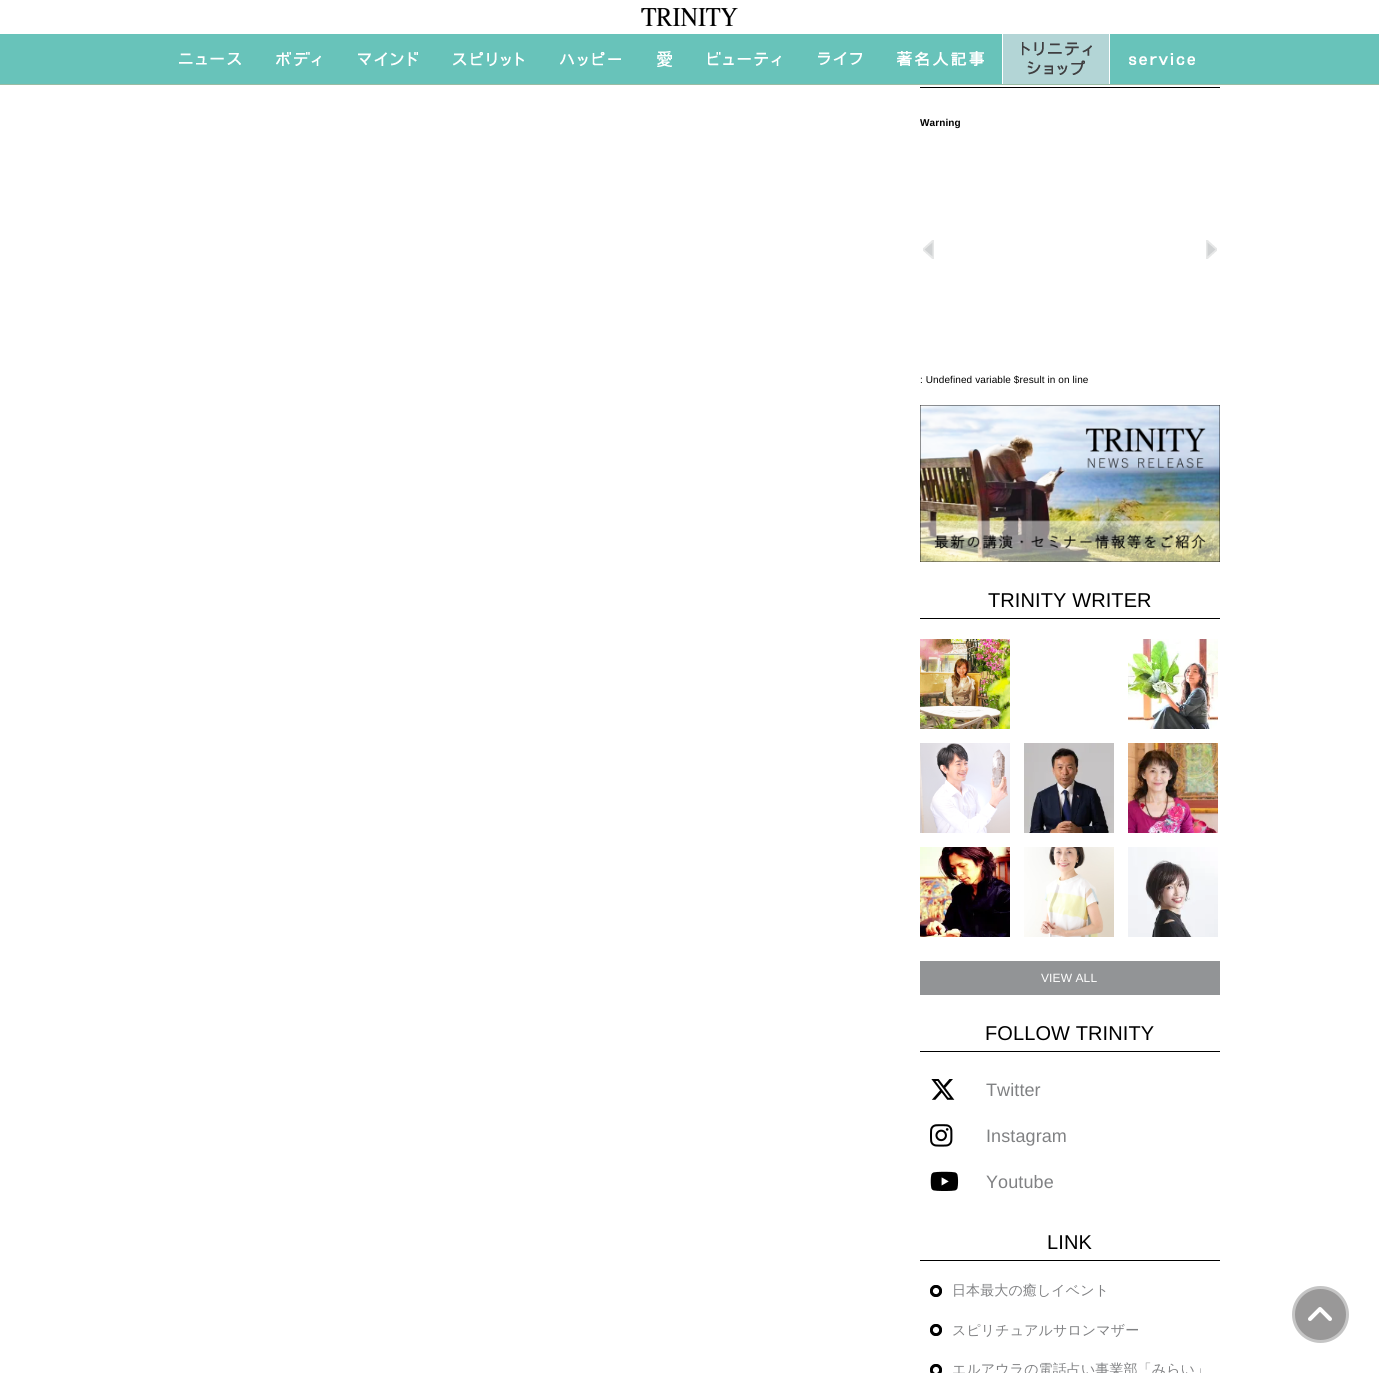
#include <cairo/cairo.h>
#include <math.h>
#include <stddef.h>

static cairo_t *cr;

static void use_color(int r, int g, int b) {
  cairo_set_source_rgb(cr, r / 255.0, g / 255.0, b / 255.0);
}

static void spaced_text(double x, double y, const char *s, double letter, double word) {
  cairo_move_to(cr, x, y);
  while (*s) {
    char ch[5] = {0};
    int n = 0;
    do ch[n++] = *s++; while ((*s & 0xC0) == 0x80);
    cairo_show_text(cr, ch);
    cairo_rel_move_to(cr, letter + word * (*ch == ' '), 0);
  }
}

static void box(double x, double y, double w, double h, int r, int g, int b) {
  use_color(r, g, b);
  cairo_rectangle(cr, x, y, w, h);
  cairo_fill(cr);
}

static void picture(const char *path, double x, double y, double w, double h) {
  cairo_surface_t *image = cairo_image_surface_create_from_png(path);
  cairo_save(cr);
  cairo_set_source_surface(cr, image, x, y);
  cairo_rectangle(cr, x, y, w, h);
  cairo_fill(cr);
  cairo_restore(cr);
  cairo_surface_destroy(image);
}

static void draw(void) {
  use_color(255, 255, 255);
  cairo_paint(cr);
  box(0, 34, 1379, 50, 104, 195, 186);
  box(0, 84, 1379, 1, 154, 188, 164);
  picture("img_01.png", 641, 8, 97, 18);
  picture("img_02.png", 179, 53, 62, 12);
  picture("img_03.png", 276, 52, 45, 14);
  picture("img_04.png", 358, 52, 60, 14);
  picture("img_05.png", 453, 52, 71, 14);
  picture("img_06.png", 560, 52, 61, 14);
  picture("img_07.png", 657, 51, 15, 16);
  picture("img_08.png", 708, 52, 73, 14);
  picture("img_09.png", 818, 52, 44, 13);
  picture("img_10.png", 897, 51, 87, 15);
  box(1003, 34, 106, 50, 179, 213, 214);
  box(1109, 34, 1, 50, 255, 255, 255);
  box(1002, 34, 1, 50, 255, 255, 255);
  picture("img_11.png", 1022, 42, 70, 33);
  picture("img_12.png", 1129, 53, 66, 12);
  box(920, 87, 300, 1, 0, 0, 0);
  picture("img_13.png", 923, 240, 11, 19);
  picture("img_14.png", 1206, 240, 11, 19);
  picture("img_15.png", 920, 405, 300, 157);
  box(920, 618, 300, 1, 0, 0, 0);
  picture("img_16.png", 920, 639, 90, 90);
  picture("img_17.png", 1128, 639, 90, 90);
  picture("img_18.png", 920, 743, 90, 90);
  picture("img_19.png", 1024, 743, 90, 90);
  picture("img_20.png", 1128, 743, 90, 90);
  picture("img_21.png", 920, 847, 90, 90);
  picture("img_22.png", 1024, 847, 90, 90);
  picture("img_23.png", 1128, 847, 90, 90);
  box(920, 961, 300, 34, 146, 148, 150);
  box(920, 1051, 300, 1, 0, 0, 0);
  picture("img_24.png", 931, 1079, 24, 21);
  picture("img_25.png", 930, 1124, 23, 23);
  picture("img_26.png", 930, 1171, 29, 20);
  box(920, 1260, 300, 1, 0, 0, 0);
  picture("img_27.png", 930, 1285, 12, 12);
  picture("img_27.png", 930, 1324, 12, 12);
  picture("img_28.png", 930, 1364, 12, 9);
  use_color(153, 152, 152);
  cairo_arc(cr, 1320.5, 1314.5, 27, 0, 2 * M_PI);
  cairo_fill_preserve(cr);
  use_color(197, 197, 197);
  cairo_set_line_width(cr, 3);
  cairo_stroke(cr);
  picture("img_29.png", 1308, 1307, 24, 14);
  cairo_select_font_face(cr, "Liberation Sans", CAIRO_FONT_SLANT_NORMAL, CAIRO_FONT_WEIGHT_BOLD);
  cairo_set_font_size(cr, 10);
  use_color(0, 0, 0);
  spaced_text(920, 126, "Warning", 0.1, 0);
  cairo_select_font_face(cr, "Liberation Sans", CAIRO_FONT_SLANT_NORMAL, CAIRO_FONT_WEIGHT_NORMAL);
  spaced_text(920, 383, ": Undefined variable $result in on line", 0.1, 0);
  cairo_set_font_size(cr, 20);
  spaced_text(988, 607, "TRINITY WRITER", 0.1, 0);
  cairo_set_font_size(cr, 12);
  use_color(255, 255, 255);
  spaced_text(1041, 982, "VIEW ALL", 0.1, 0);
  cairo_set_font_size(cr, 20);
  use_color(0, 0, 0);
  spaced_text(985, 1040, "FOLLOW TRINITY", 0.1, 0);
  cairo_set_font_size(cr, 18);
  use_color(128, 129, 131);
  spaced_text(986, 1096, "Twitter", 0.1, 0);
  spaced_text(986, 1142, "Instagram", 0.1, 0);
  spaced_text(986, 1188, "Youtube", 0.1, 0);
  cairo_set_font_size(cr, 20);
  use_color(0, 0, 0);
  spaced_text(1047, 1249, "LINK", 0.1, 0);
  cairo_select_font_face(cr, "WenQuanYi Zen Hei Medium", CAIRO_FONT_SLANT_NORMAL, CAIRO_FONT_WEIGHT_NORMAL);
  cairo_set_font_size(cr, 14);
  use_color(128, 129, 131);
  spaced_text(952, 1295, "日本最大の癒しイベント", 0.1, 0);
  spaced_text(952, 1335, "スピリチュアルサロンマザー", 0.1, 0);
  spaced_text(952, 1374, "エルアウラの電話占い事業部「みらい」", 0.1, 0);
}

int main(void) {
  cairo_surface_t *surface = cairo_image_surface_create(CAIRO_FORMAT_RGB24, 1379, 1373);
  cr = cairo_create(surface);
  cairo_font_options_t *options = cairo_font_options_create();
  cairo_font_options_set_hint_metrics(options, CAIRO_HINT_METRICS_OFF);
  cairo_font_options_set_hint_style(options, CAIRO_HINT_STYLE_NONE);
  cairo_set_font_options(cr, options);
  cairo_set_miter_limit(cr, 4);
  draw();
  cairo_surface_write_to_png(surface, "out.png");
  cairo_font_options_destroy(options);
  cairo_destroy(cr);
  cairo_surface_destroy(surface);
  return 0;
}
